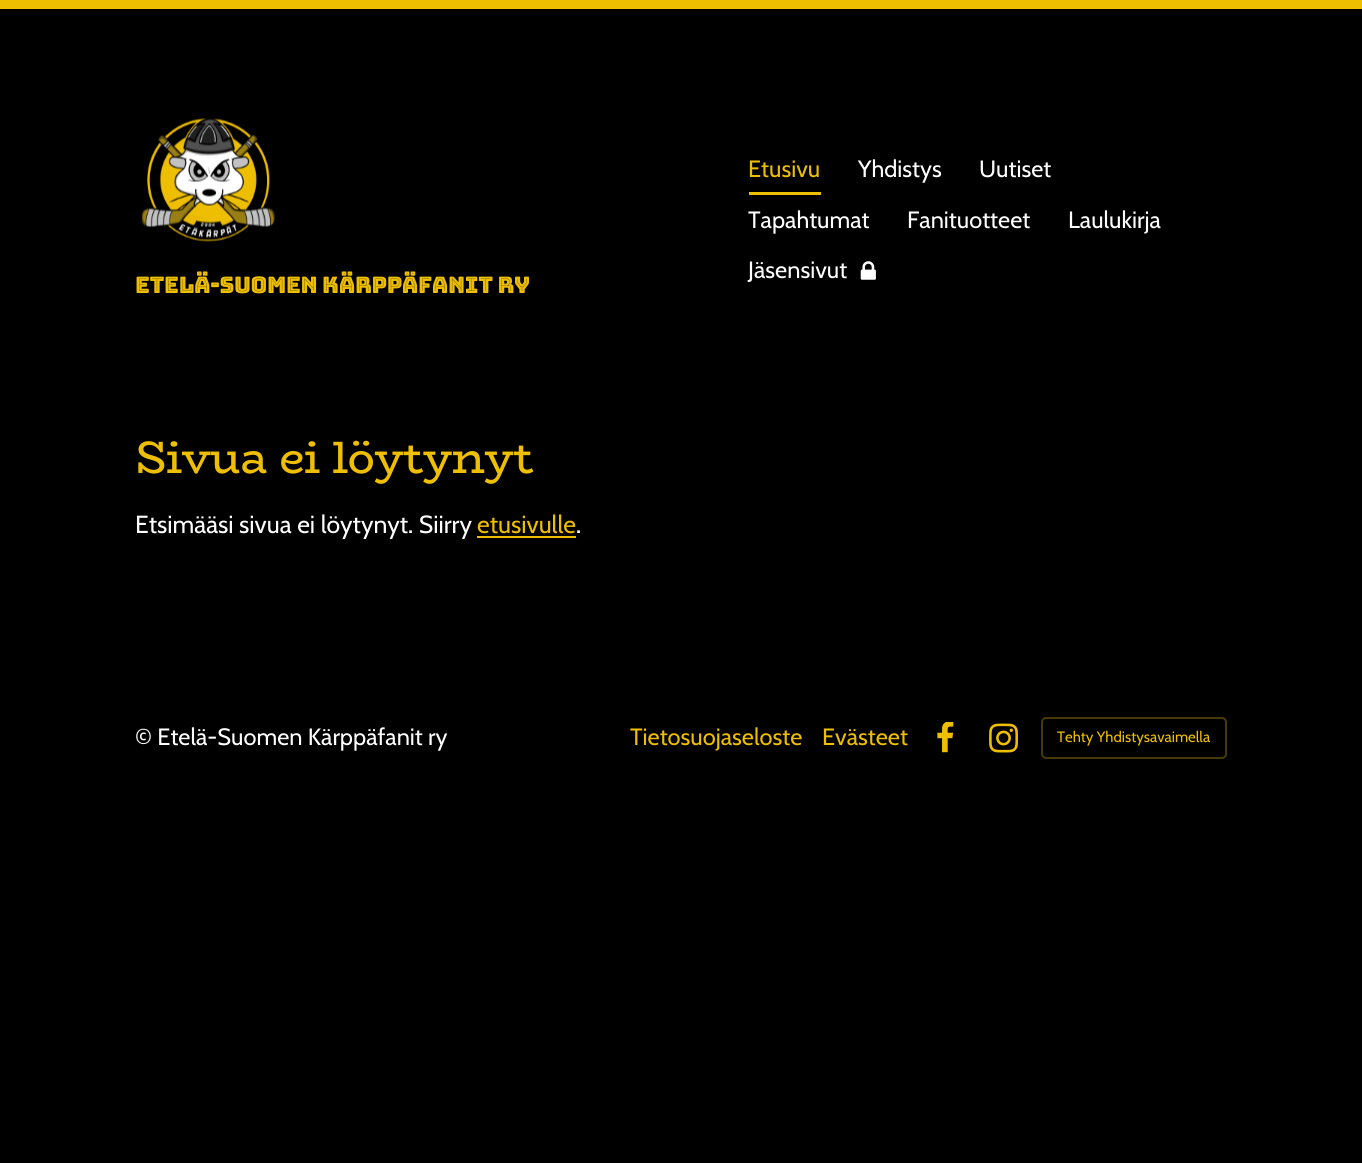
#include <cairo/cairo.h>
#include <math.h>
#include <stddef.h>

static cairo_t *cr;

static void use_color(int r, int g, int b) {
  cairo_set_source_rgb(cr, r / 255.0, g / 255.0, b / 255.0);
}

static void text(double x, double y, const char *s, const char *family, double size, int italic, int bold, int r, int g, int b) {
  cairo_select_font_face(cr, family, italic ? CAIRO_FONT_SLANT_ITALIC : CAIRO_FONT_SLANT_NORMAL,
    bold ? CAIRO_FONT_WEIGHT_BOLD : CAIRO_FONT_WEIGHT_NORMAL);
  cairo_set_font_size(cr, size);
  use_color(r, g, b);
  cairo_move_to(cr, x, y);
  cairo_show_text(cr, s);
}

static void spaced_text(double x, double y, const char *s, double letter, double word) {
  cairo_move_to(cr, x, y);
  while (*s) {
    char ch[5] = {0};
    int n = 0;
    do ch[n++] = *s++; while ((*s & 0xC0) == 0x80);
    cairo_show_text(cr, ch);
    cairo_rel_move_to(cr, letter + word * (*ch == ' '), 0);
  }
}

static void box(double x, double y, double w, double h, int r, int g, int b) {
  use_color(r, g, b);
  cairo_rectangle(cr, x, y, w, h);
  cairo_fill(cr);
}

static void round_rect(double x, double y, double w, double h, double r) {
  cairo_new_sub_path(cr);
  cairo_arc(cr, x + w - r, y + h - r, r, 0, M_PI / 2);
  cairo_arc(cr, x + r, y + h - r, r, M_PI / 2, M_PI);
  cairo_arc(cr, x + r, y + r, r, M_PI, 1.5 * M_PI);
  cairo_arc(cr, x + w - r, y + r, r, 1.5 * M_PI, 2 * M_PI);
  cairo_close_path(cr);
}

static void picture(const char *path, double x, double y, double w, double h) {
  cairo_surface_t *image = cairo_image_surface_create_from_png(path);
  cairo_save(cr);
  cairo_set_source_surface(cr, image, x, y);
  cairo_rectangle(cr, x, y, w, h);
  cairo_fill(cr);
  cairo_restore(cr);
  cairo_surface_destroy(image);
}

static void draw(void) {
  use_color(0, 0, 0);
  cairo_paint(cr);
  box(0, 0, 1362, 9, 238, 190, 0);
  picture("img_01.png", 141, 118, 134, 124);
  box(749, 192, 72, 3, 238, 190, 0);
  picture("img_02.png", 860, 261, 16, 19);
  box(477, 536, 99, 2, 238, 190, 0);
  picture("img_03.png", 937, 722, 17, 31);
  picture("img_04.png", 989, 723, 29, 30);
  round_rect(1042, 718, 184, 40, 4);
  use_color(71, 57, 0);
  cairo_stroke(cr);
  cairo_select_font_face(cr, "Bungee Inline", CAIRO_FONT_SLANT_NORMAL, CAIRO_FONT_WEIGHT_NORMAL);
  cairo_set_font_size(cr, 22.75);
  use_color(238, 190, 0);
  spaced_text(135, 293, "Etelä-Suomen Kärppäfanit ry", -0.35, 0);
  text(748, 177, "Etusivu", "Cabin", 23.6, 0, 0, 238, 190, 0);
  text(858, 177, "Yhdistys", "Cabin", 23.6, 0, 0, 255, 255, 255);
  text(979, 177, "Uutiset", "Cabin", 23.6, 0, 0, 255, 255, 255);
  text(748, 228, "Tapahtumat", "Cabin", 23.6, 0, 0, 255, 255, 255);
  text(907, 228, "Fanituotteet", "Cabin", 23.6, 0, 0, 255, 255, 255);
  text(1068, 228, "Laulukirja", "Cabin", 23.6, 0, 0, 255, 255, 255);
  text(748, 278, "Jäsensivut", "Cabin", 23.6, 0, 0, 255, 255, 255);
  cairo_select_font_face(cr, "BioRhyme", CAIRO_FONT_SLANT_NORMAL, CAIRO_FONT_WEIGHT_NORMAL);
  cairo_set_font_size(cr, 45.5);
  use_color(238, 190, 0);
  spaced_text(135, 473, "Sivua ei löytynyt", -0.7, 0);
  text(135, 533, "Etsimääsi sivua ei löytynyt. Siirry", "Cabin", 24.75, 0, 0, 255, 255, 255);
  text(477, 533, "etusivulle", "Cabin", 24.75, 0, 0, 238, 190, 0);
  text(576, 533, ".", "Cabin", 24.75, 0, 0, 255, 255, 255);
  text(135, 745, "© Etelä-Suomen Kärppäfanit ry", "Cabin", 23.6, 0, 0, 255, 255, 255);
  text(630, 745, "Tietosuojaseloste", "Cabin", 23.6, 0, 0, 238, 190, 0);
  text(822, 745, "Evästeet", "Cabin", 23.6, 0, 0, 238, 190, 0);
  text(1057, 742, "Tehty Yhdistysavaimella", "Cabin", 15, 0, 0, 238, 190, 0);
}

int main(void) {
  cairo_surface_t *surface = cairo_image_surface_create(CAIRO_FORMAT_RGB24, 1362, 1163);
  cr = cairo_create(surface);
  cairo_font_options_t *options = cairo_font_options_create();
  cairo_font_options_set_hint_metrics(options, CAIRO_HINT_METRICS_OFF);
  cairo_font_options_set_hint_style(options, CAIRO_HINT_STYLE_NONE);
  cairo_set_font_options(cr, options);
  cairo_set_miter_limit(cr, 4);
  draw();
  cairo_surface_write_to_png(surface, "out.png");
  cairo_font_options_destroy(options);
  cairo_destroy(cr);
  cairo_surface_destroy(surface);
  return 0;
}
